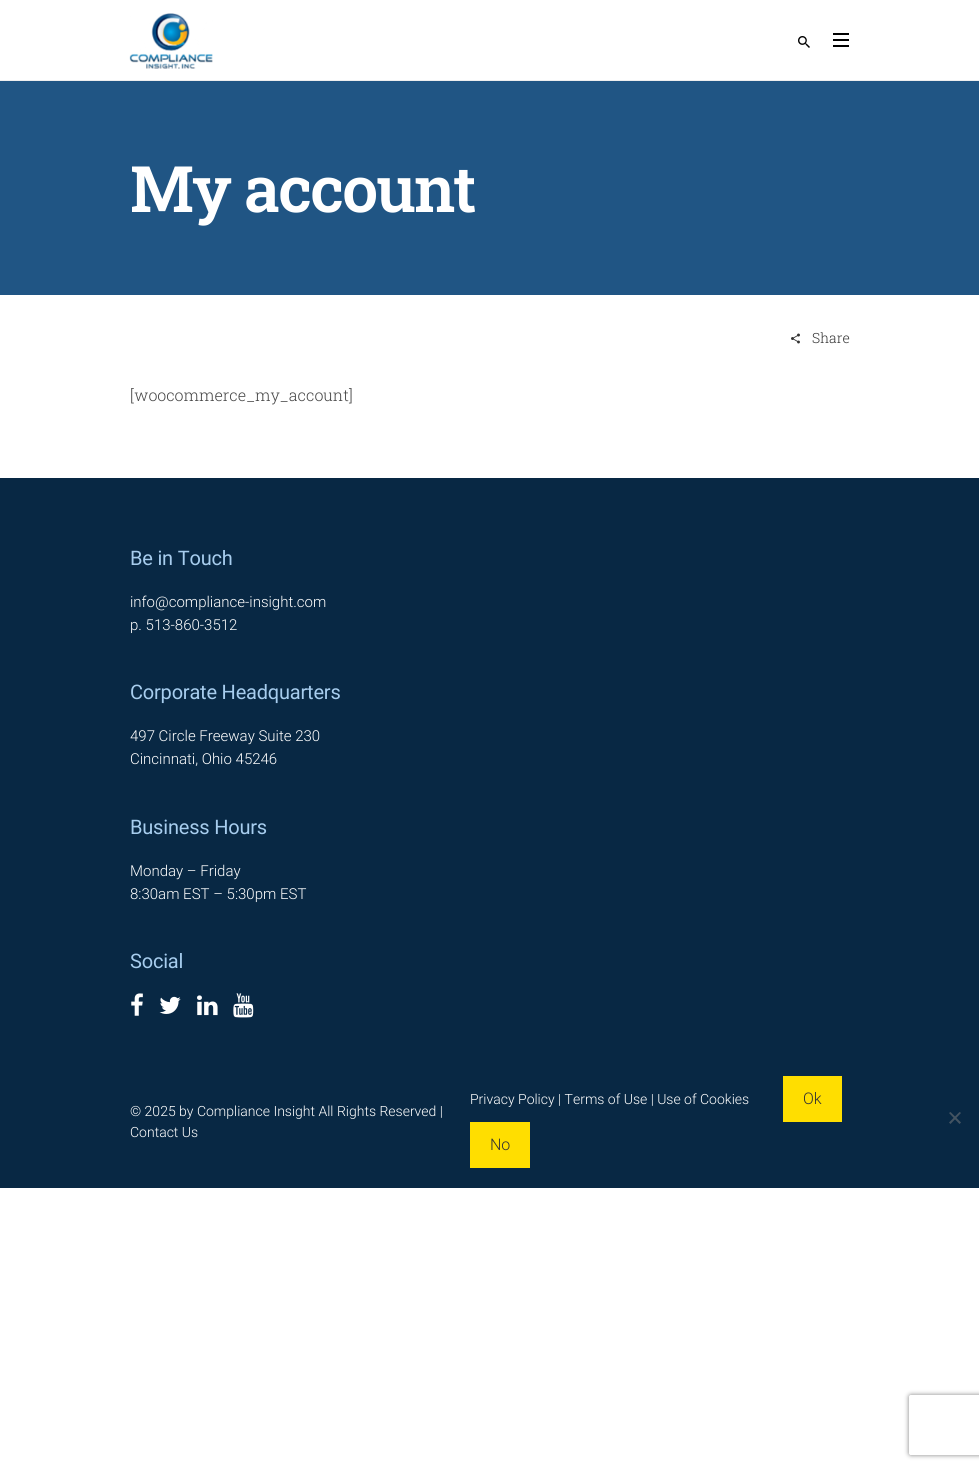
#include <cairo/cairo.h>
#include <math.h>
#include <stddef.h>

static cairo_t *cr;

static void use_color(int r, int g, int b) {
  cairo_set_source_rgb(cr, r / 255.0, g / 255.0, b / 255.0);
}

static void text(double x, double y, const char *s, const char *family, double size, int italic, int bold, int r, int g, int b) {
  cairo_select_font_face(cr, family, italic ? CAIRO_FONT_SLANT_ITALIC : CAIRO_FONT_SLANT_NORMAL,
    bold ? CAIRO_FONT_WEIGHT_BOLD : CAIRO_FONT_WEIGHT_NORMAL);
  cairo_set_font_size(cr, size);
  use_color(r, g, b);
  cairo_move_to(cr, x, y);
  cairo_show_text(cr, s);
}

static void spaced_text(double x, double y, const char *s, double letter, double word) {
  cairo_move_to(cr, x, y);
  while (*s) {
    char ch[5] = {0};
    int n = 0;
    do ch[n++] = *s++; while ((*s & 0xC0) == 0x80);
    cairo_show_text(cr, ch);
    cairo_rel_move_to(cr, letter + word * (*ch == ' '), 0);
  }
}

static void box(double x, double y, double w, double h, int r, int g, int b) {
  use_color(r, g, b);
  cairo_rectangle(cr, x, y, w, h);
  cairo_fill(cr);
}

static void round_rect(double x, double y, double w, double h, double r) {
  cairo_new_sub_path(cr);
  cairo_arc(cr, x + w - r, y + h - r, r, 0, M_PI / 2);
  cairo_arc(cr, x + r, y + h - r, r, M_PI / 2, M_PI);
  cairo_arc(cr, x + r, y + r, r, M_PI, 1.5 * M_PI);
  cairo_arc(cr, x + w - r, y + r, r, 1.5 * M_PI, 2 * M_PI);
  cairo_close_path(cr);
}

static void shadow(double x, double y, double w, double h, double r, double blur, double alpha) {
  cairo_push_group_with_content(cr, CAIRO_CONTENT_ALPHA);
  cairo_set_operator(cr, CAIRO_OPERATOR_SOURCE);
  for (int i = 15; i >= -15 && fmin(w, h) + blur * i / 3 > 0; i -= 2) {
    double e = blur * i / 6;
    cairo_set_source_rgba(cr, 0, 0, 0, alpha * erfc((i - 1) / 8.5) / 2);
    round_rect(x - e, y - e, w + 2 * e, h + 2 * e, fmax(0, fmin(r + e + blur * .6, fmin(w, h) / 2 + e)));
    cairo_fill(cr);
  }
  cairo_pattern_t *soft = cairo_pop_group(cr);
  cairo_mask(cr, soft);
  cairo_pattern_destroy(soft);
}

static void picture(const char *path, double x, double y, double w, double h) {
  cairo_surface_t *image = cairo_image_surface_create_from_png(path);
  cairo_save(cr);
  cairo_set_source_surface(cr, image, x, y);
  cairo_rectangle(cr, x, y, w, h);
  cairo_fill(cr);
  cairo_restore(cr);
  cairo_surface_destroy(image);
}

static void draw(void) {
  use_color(255, 255, 255);
  cairo_paint(cr);
  box(0, 80, 979, 1, 238, 238, 238);
  picture("img_01.png", 129, 13, 84, 56);
  picture("img_02.png", 798, 36, 12, 12);
  box(833, 33, 16, 2, 0, 0, 0);
  box(833, 39, 16, 2, 0, 0, 0);
  box(833, 45, 16, 2, 0, 0, 0);
  box(0, 81, 979, 214, 32, 85, 132);
  picture("img_03.png", 791, 333, 9, 11);
  box(0, 478, 979, 710, 8, 40, 68);
  picture("img_04.png", 131, 993, 12, 23);
  picture("img_05.png", 159, 996, 22, 18);
  picture("img_06.png", 197, 995, 21, 21);
  picture("img_07.png", 233, 993, 21, 25);
  box(783, 1076, 59, 46, 255, 222, 0);
  use_color(68, 84, 98);
  cairo_new_path(cr);
  cairo_move_to(cr, 959.5, 1112);
  cairo_line_to(cr, 961, 1113);
  cairo_line_to(cr, 950.5, 1124);
  cairo_line_to(cr, 949, 1122.5);
  cairo_close_path(cr);
  cairo_fill(cr);
  cairo_new_path(cr);
  cairo_move_to(cr, 949, 1113);
  cairo_line_to(cr, 950.5, 1112);
  cairo_line_to(cr, 961, 1122.5);
  cairo_line_to(cr, 959.5, 1124);
  cairo_close_path(cr);
  cairo_fill(cr);
  box(470, 1122, 60, 46, 255, 222, 0);
  cairo_save(cr);
  cairo_set_fill_rule(cr, CAIRO_FILL_RULE_EVEN_ODD);
  cairo_new_path(cr);
  cairo_move_to(cr, 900, 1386);
  cairo_line_to(cr, 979, 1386);
  cairo_line_to(cr, 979, 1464);
  cairo_line_to(cr, 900, 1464);
  cairo_close_path(cr);
  cairo_move_to(cr, 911, 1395);
  cairo_line_to(cr, 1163, 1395);
  cairo_curve_to(cr, 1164, 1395, 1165, 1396, 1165, 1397);
  cairo_line_to(cr, 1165, 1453);
  cairo_curve_to(cr, 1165, 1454, 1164, 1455, 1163, 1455);
  cairo_line_to(cr, 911, 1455);
  cairo_curve_to(cr, 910, 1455, 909, 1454, 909, 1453);
  cairo_line_to(cr, 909, 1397);
  cairo_curve_to(cr, 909, 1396, 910, 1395, 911, 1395);
  cairo_close_path(cr);
  cairo_clip(cr);
  use_color(128, 128, 128);
  shadow(909, 1395, 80, 60, 2, 2.5, 1);
  cairo_restore(cr);
  cairo_select_font_face(cr, "Roboto Slab SemiBold", CAIRO_FONT_SLANT_NORMAL, CAIRO_FONT_WEIGHT_NORMAL);
  cairo_set_font_size(cr, 64);
  use_color(255, 255, 255);
  spaced_text(130, 212, "My account", -1.75, 0);
  text(812, 343, "Share", "Roboto Slab Light", 14, 0, 0, 51, 51, 51);
  text(130, 401, "[woocommerce_my_account]", "Roboto Slab Light", 16, 0, 0, 69, 69, 69);
  cairo_select_font_face(cr, "Roboto", CAIRO_FONT_SLANT_NORMAL, CAIRO_FONT_WEIGHT_NORMAL);
  cairo_set_font_size(cr, 20);
  use_color(167, 205, 238);
  spaced_text(130, 565, "Be in Touch", -0.2, 0);
  text(130, 607, "info@compliance-insight.com", "Roboto Light", 15, 0, 0, 255, 255, 255);
  text(130, 630, "p. 513-860-3512", "Roboto Light", 15, 0, 0, 255, 255, 255);
  cairo_select_font_face(cr, "Roboto", CAIRO_FONT_SLANT_NORMAL, CAIRO_FONT_WEIGHT_NORMAL);
  cairo_set_font_size(cr, 20);
  use_color(167, 205, 238);
  spaced_text(130, 699, "Corporate Headquarters", -0.2, 0);
  text(130, 741, "497 Circle Freeway Suite 230", "Roboto Light", 15, 0, 0, 255, 255, 255);
  text(130, 764, "Cincinnati, Ohio 45246", "Roboto Light", 15, 0, 0, 255, 255, 255);
  cairo_select_font_face(cr, "Roboto", CAIRO_FONT_SLANT_NORMAL, CAIRO_FONT_WEIGHT_NORMAL);
  cairo_set_font_size(cr, 20);
  use_color(167, 205, 238);
  spaced_text(130, 834, "Business Hours", -0.2, 0);
  text(130, 876, "Monday – Friday", "Roboto Light", 15, 0, 0, 255, 255, 255);
  text(130, 899, "8:30am EST – 5:30pm EST", "Roboto Light", 15, 0, 0, 255, 255, 255);
  cairo_select_font_face(cr, "Roboto", CAIRO_FONT_SLANT_NORMAL, CAIRO_FONT_WEIGHT_NORMAL);
  cairo_set_font_size(cr, 20);
  use_color(167, 205, 238);
  spaced_text(130, 968, "Social", -0.2, 0);
  text(130, 1116, "© 2025 by Compliance Insight All Rights Reserved |", "Roboto Light", 14, 0, 0, 255, 255, 255);
  text(130, 1137, "Contact Us", "Roboto Light", 14, 0, 0, 255, 255, 255);
  text(470, 1104, "Privacy Policy | Terms of Use | Use of Cookies", "Roboto Light", 14, 0, 0, 255, 255, 255);
  text(803, 1104, "Ok", "Roboto Light", 16, 0, 0, 51, 51, 51);
  text(490, 1150, "No", "Roboto Light", 16, 0, 0, 51, 51, 51);
}

int main(void) {
  cairo_surface_t *surface = cairo_image_surface_create(CAIRO_FORMAT_RGB24, 979, 1469);
  cr = cairo_create(surface);
  cairo_font_options_t *options = cairo_font_options_create();
  cairo_font_options_set_hint_metrics(options, CAIRO_HINT_METRICS_OFF);
  cairo_font_options_set_hint_style(options, CAIRO_HINT_STYLE_NONE);
  cairo_set_font_options(cr, options);
  cairo_set_miter_limit(cr, 4);
  draw();
  cairo_surface_write_to_png(surface, "out.png");
  cairo_font_options_destroy(options);
  cairo_destroy(cr);
  cairo_surface_destroy(surface);
  return 0;
}
